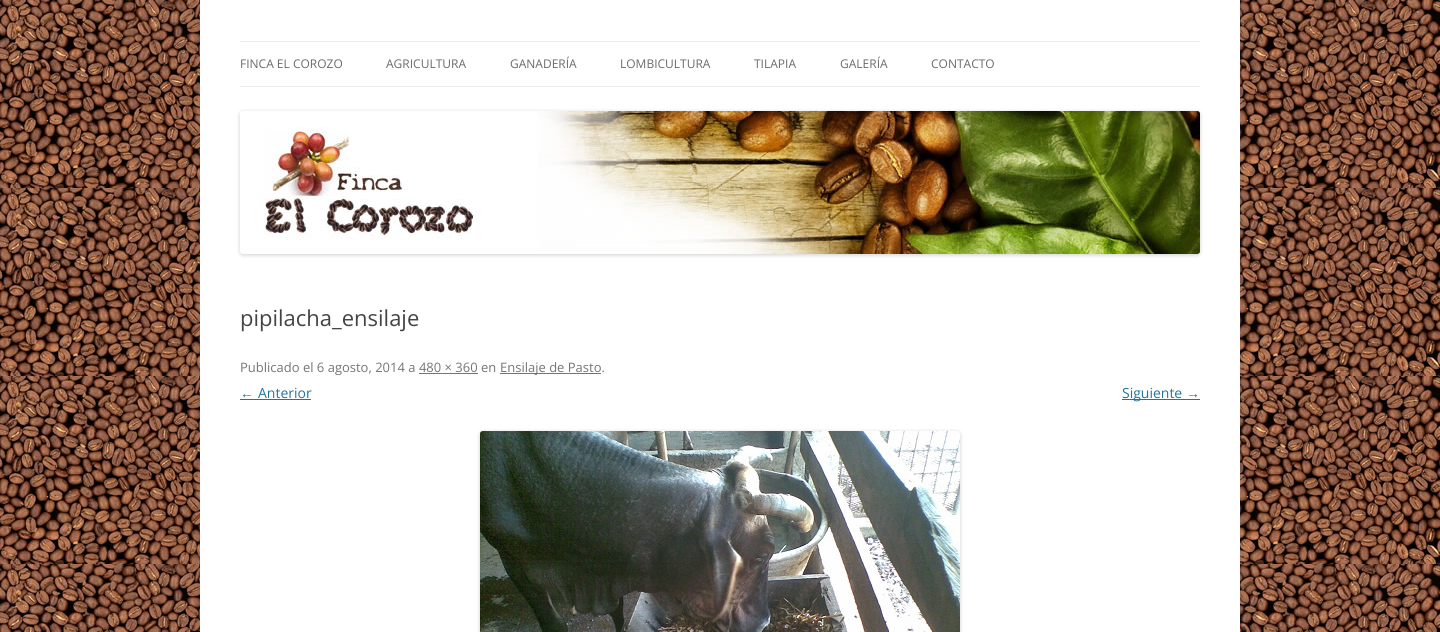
#include <cairo/cairo.h>
#include <math.h>
#include <stddef.h>

static cairo_t *cr;

static void use_color(int r, int g, int b) {
  cairo_set_source_rgb(cr, r / 255.0, g / 255.0, b / 255.0);
}

static void text(double x, double y, const char *s, const char *family, double size, int italic, int bold, int r, int g, int b) {
  cairo_select_font_face(cr, family, italic ? CAIRO_FONT_SLANT_ITALIC : CAIRO_FONT_SLANT_NORMAL,
    bold ? CAIRO_FONT_WEIGHT_BOLD : CAIRO_FONT_WEIGHT_NORMAL);
  cairo_set_font_size(cr, size);
  use_color(r, g, b);
  cairo_move_to(cr, x, y);
  cairo_show_text(cr, s);
}

static void box(double x, double y, double w, double h, int r, int g, int b) {
  use_color(r, g, b);
  cairo_rectangle(cr, x, y, w, h);
  cairo_fill(cr);
}

static void round_rect(double x, double y, double w, double h, double r) {
  cairo_new_sub_path(cr);
  cairo_arc(cr, x + w - r, y + h - r, r, 0, M_PI / 2);
  cairo_arc(cr, x + r, y + h - r, r, M_PI / 2, M_PI);
  cairo_arc(cr, x + r, y + r, r, M_PI, 1.5 * M_PI);
  cairo_arc(cr, x + w - r, y + r, r, 1.5 * M_PI, 2 * M_PI);
  cairo_close_path(cr);
}

static void shadow(double x, double y, double w, double h, double r, double blur, double alpha) {
  cairo_push_group_with_content(cr, CAIRO_CONTENT_ALPHA);
  cairo_set_operator(cr, CAIRO_OPERATOR_SOURCE);
  for (int i = 15; i >= -15 && fmin(w, h) + blur * i / 3 > 0; i -= 2) {
    double e = blur * i / 6;
    cairo_set_source_rgba(cr, 0, 0, 0, alpha * erfc((i - 1) / 8.5) / 2);
    round_rect(x - e, y - e, w + 2 * e, h + 2 * e, fmax(0, fmin(r + e + blur * .6, fmin(w, h) / 2 + e)));
    cairo_fill(cr);
  }
  cairo_pattern_t *soft = cairo_pop_group(cr);
  cairo_mask(cr, soft);
  cairo_pattern_destroy(soft);
}

static void picture(const char *path, double x, double y, double w, double h) {
  cairo_surface_t *image = cairo_image_surface_create_from_png(path);
  cairo_save(cr);
  cairo_set_source_surface(cr, image, x, y);
  cairo_rectangle(cr, x, y, w, h);
  cairo_fill(cr);
  cairo_restore(cr);
  cairo_surface_destroy(image);
}

static void draw(void) {
  use_color(255, 255, 255);
  cairo_paint(cr);
  picture("img_01.png", 0, 0, 1440, 632);
  use_color(100, 100, 100);
  shadow(200, -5, 1040, 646, 0, 3, 0.3);
  box(200, 0, 1040, 632, 255, 255, 255);
  box(240, 41, 960, 1, 237, 237, 237);
  box(240, 86, 960, 1, 237, 237, 237);
  use_color(0, 0, 0);
  shadow(240, 112, 960, 143, 3, 2, 0.2);
  picture("img_02.png", 240, 111, 960, 143);
  box(500, 373, 101, 1, 117, 117, 117);
  box(419, 373, 59, 1, 117, 117, 117);
  box(240, 399, 71, 1, 33, 117, 155);
  box(1122, 399, 78, 1, 33, 117, 155);
  use_color(0, 0, 0);
  shadow(480, 432, 480, 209, 3, 2, 0.2);
  picture("img_03.png", 480, 431, 480, 201);
  text(240, 68, "FINCA EL COROZO", "Open Sans", 12, 0, 0, 106, 106, 106);
  text(386, 68, "AGRICULTURA", "Open Sans", 12, 0, 0, 106, 106, 106);
  text(510, 68, "GANADERÍA", "Open Sans", 12, 0, 0, 106, 106, 106);
  text(620, 68, "LOMBICULTURA", "Open Sans", 12, 0, 0, 106, 106, 106);
  text(754, 68, "TILAPIA", "Open Sans", 12, 0, 0, 106, 106, 106);
  text(840, 68, "GALERÍA", "Open Sans", 12, 0, 0, 106, 106, 106);
  text(931, 68, "CONTACTO", "Open Sans", 12, 0, 0, 106, 106, 106);
  text(240, 326, "pipilacha_ensilaje", "Open Sans", 22, 0, 0, 68, 68, 68);
  text(240, 372, "Publicado el 6 agosto, 2014 a 480 × 360 en", "Open Sans", 13, 0, 0, 117, 117, 117);
  text(500, 372, "Ensilaje de Pasto.", "Open Sans", 13, 0, 0, 117, 117, 117);
  text(240, 398, "←", "Liberation Sans", 14, 0, 0, 33, 117, 155);
  text(258, 398, "Anterior", "Open Sans", 14, 0, 0, 33, 117, 155);
  text(1122, 398, "Siguiente", "Open Sans", 14, 0, 0, 33, 117, 155);
  text(1186, 398, "→", "Liberation Sans", 14, 0, 0, 33, 117, 155);
}

int main(void) {
  cairo_surface_t *surface = cairo_image_surface_create(CAIRO_FORMAT_RGB24, 1440, 632);
  cr = cairo_create(surface);
  cairo_font_options_t *options = cairo_font_options_create();
  cairo_font_options_set_hint_metrics(options, CAIRO_HINT_METRICS_OFF);
  cairo_font_options_set_hint_style(options, CAIRO_HINT_STYLE_NONE);
  cairo_set_font_options(cr, options);
  cairo_set_miter_limit(cr, 4);
  draw();
  cairo_surface_write_to_png(surface, "out.png");
  cairo_font_options_destroy(options);
  cairo_destroy(cr);
  cairo_surface_destroy(surface);
  return 0;
}
